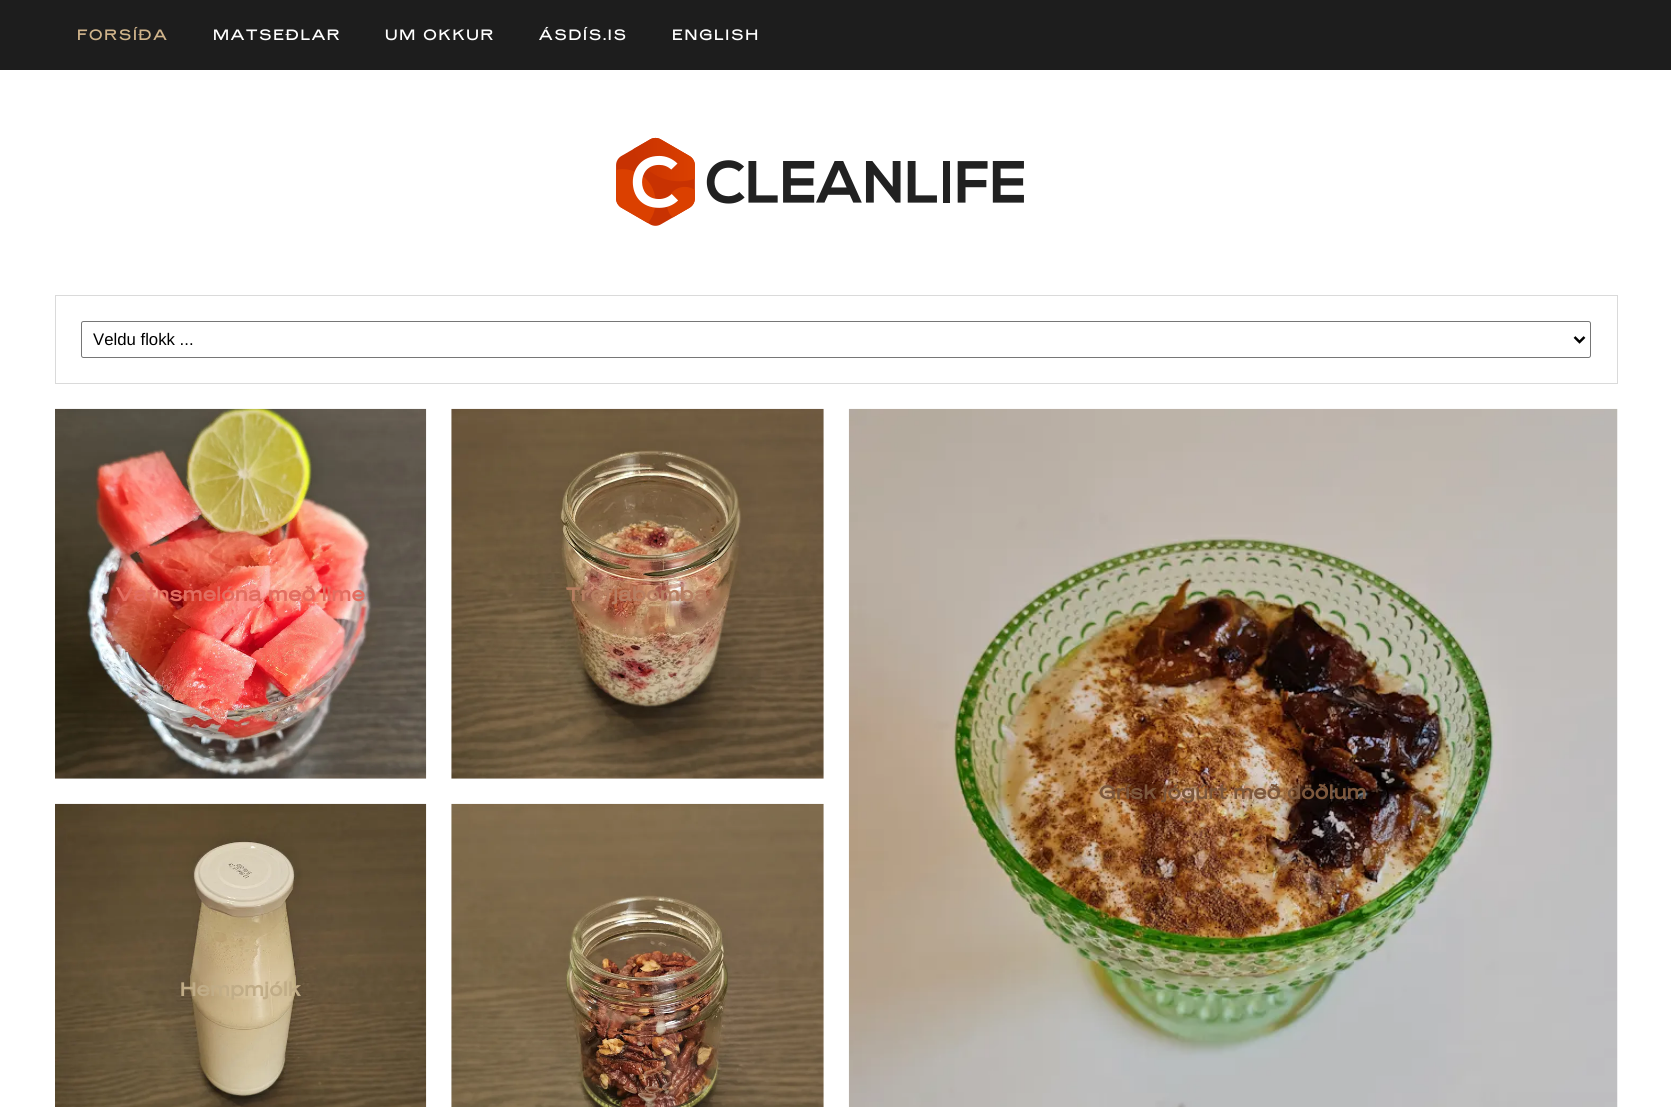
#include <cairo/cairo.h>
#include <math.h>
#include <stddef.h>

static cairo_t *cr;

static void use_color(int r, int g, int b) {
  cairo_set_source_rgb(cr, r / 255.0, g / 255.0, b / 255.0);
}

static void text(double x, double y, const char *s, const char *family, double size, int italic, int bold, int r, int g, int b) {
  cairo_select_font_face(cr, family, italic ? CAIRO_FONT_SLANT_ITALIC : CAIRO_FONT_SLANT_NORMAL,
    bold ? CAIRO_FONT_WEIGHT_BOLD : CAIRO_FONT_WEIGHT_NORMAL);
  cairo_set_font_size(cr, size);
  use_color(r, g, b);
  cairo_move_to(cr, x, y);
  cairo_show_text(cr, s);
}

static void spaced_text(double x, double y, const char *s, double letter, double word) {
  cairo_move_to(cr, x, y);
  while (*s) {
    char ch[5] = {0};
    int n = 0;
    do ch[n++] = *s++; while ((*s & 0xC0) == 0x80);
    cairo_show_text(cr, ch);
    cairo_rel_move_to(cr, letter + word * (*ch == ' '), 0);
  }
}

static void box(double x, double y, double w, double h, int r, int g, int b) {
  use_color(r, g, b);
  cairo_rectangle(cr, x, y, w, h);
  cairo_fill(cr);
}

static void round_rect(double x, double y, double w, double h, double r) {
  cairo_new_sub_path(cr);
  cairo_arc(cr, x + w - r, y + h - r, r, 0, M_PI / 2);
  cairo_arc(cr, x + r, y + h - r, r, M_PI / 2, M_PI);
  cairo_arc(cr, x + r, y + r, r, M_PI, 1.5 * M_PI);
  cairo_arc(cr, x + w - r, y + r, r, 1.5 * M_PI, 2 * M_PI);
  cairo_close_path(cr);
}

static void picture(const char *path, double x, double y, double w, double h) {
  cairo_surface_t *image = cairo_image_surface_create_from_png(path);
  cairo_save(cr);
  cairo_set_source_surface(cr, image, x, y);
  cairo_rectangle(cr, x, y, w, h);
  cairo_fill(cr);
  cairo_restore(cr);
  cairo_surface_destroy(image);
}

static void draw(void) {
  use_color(255, 255, 255);
  cairo_paint(cr);
  box(0, 0, 1671, 70, 29, 29, 29);
  picture("img_01.png", 616, 137, 408, 89);
  cairo_rectangle(cr, 55.5, 295.5, 1562, 88);
  use_color(218, 218, 218);
  cairo_set_line_width(cr, 1);
  cairo_stroke(cr);
  round_rect(81.5, 321.5, 1509, 36, 2);
  use_color(118, 118, 118);
  cairo_stroke(cr);
  cairo_new_path(cr);
  cairo_move_to(cr, 1574.5, 337);
  cairo_line_to(cr, 1579.5, 342);
  cairo_line_to(cr, 1584.5, 337);
  use_color(0, 0, 0);
  cairo_set_line_width(cr, 2.5);
  cairo_stroke(cr);
  picture("img_02.png", 55, 408, 372, 371);
  picture("img_03.png", 451, 408, 373, 371);
  picture("img_04.png", 848, 408, 770, 699);
  picture("img_05.png", 55, 803, 372, 304);
  picture("img_06.png", 451, 803, 373, 304);
  cairo_select_font_face(cr, "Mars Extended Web", CAIRO_FONT_SLANT_NORMAL, CAIRO_FONT_WEIGHT_NORMAL);
  cairo_set_font_size(cr, 15);
  use_color(208, 180, 139);
  spaced_text(77, 40, "FORSÍÐA", 1.75, 0);
  use_color(255, 255, 255);
  spaced_text(213, 40, "MATSEÐLAR", 1.75, 0);
  spaced_text(385, 40, "UM OKKUR", 1.75, 0);
  spaced_text(539, 40, "ÁSDÍS.IS", 1.75, 0);
  spaced_text(672, 40, "ENGLISH", 1.75, 0);
  text(93, 345, "Veldu flokk ...", "Liberation Sans", 16.75, 0, 0, 0, 0, 0);
  cairo_select_font_face(cr, "Mars Extended Web", CAIRO_FONT_SLANT_NORMAL, CAIRO_FONT_WEIGHT_BOLD);
  cairo_set_font_size(cr, 18.75);
  use_color(227, 109, 96);
  spaced_text(116, 601, "Vatnsmelóna með lime", 0.45, 0);
  use_color(182, 126, 97);
  spaced_text(566, 601, "Trefjabomba", 0.45, 0);
  use_color(124, 87, 60);
  spaced_text(1099, 799, "Grísk jógúrt með döðlum", 0.45, 0);
  use_color(192, 172, 135);
  spaced_text(180, 996, "Hempmjólk", 0.45, 0);
}

int main(void) {
  cairo_surface_t *surface = cairo_image_surface_create(CAIRO_FORMAT_RGB24, 1671, 1107);
  cr = cairo_create(surface);
  cairo_font_options_t *options = cairo_font_options_create();
  cairo_font_options_set_hint_metrics(options, CAIRO_HINT_METRICS_OFF);
  cairo_font_options_set_hint_style(options, CAIRO_HINT_STYLE_NONE);
  cairo_set_font_options(cr, options);
  cairo_set_miter_limit(cr, 4);
  draw();
  cairo_surface_write_to_png(surface, "out.png");
  cairo_font_options_destroy(options);
  cairo_destroy(cr);
  cairo_surface_destroy(surface);
  return 0;
}
